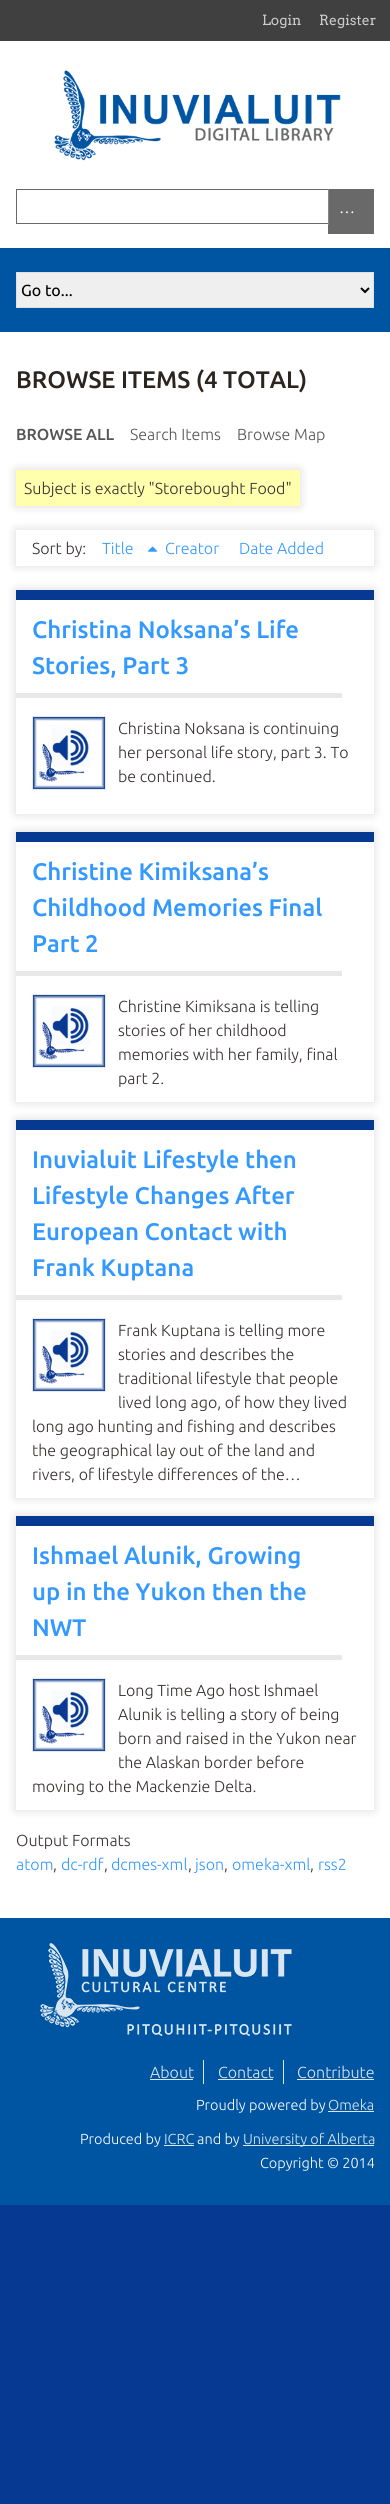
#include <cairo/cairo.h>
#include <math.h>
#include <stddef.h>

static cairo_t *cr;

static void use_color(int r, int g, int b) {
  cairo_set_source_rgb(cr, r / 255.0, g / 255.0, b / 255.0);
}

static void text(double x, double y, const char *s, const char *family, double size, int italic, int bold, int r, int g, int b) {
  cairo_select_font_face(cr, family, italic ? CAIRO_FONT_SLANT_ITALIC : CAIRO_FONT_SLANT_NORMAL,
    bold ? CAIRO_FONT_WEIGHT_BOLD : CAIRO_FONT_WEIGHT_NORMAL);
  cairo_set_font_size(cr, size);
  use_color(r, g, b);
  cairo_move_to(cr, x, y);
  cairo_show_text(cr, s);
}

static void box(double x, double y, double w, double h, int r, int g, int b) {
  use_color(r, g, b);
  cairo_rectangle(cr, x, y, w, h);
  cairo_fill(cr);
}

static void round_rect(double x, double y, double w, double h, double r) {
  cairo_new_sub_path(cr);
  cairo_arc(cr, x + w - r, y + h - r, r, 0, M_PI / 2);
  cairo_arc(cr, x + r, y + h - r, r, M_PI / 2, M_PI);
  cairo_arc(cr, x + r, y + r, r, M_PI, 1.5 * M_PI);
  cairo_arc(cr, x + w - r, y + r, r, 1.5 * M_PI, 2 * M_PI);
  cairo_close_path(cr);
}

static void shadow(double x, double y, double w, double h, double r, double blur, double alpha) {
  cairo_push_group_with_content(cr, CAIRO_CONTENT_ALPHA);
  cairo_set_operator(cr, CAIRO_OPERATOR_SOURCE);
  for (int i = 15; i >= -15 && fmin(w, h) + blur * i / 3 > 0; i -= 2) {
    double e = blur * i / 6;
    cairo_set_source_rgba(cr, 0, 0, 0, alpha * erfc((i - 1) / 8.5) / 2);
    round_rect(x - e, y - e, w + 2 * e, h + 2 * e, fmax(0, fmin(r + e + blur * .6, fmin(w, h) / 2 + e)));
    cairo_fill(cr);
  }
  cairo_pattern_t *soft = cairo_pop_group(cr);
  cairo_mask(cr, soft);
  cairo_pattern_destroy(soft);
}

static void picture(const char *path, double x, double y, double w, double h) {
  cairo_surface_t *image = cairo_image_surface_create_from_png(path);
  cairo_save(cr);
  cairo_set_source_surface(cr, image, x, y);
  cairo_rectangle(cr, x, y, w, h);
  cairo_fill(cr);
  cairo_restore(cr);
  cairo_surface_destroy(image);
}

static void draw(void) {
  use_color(6, 57, 146);
  cairo_paint(cr);
  box(0, 0, 390, 41, 64, 64, 64);
  box(0, 41, 390, 207, 255, 255, 255);
  picture("img_01.png", 54, 69, 287, 92);
  cairo_rectangle(cr, 16.5, 189.5, 357, 34);
  use_color(105, 105, 105);
  cairo_set_line_width(cr, 1);
  cairo_stroke(cr);
  box(328, 190, 46, 44, 105, 105, 105);
  box(328, 189, 1, 36, 135, 135, 135);
  box(0, 248, 390, 84, 0, 85, 163);
  use_color(239, 239, 239);
  cairo_rectangle(cr, 16.5, 272.5, 357, 35);
  cairo_fill_preserve(cr);
  use_color(223, 226, 226);
  cairo_stroke(cr);
  cairo_new_path(cr);
  cairo_move_to(cr, 361, 288);
  cairo_line_to(cr, 365, 292);
  cairo_line_to(cr, 369, 288);
  use_color(0, 0, 0);
  cairo_set_line_width(cr, 2);
  cairo_stroke(cr);
  box(0, 332, 390, 1586, 255, 255, 255);
  use_color(0, 0, 0);
  shadow(16, 470, 284, 36, 0, 5, 0.15);
  box(16, 470, 284, 36, 255, 255, 173);
  cairo_save(cr);
  cairo_set_fill_rule(cr, CAIRO_FILL_RULE_EVEN_ODD);
  cairo_new_path(cr);
  cairo_move_to(cr, 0, 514);
  cairo_line_to(cr, 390, 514);
  cairo_line_to(cr, 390, 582);
  cairo_line_to(cr, 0, 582);
  cairo_close_path(cr);
  cairo_move_to(cr, 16, 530);
  cairo_line_to(cr, 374, 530);
  cairo_line_to(cr, 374, 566);
  cairo_line_to(cr, 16, 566);
  cairo_close_path(cr);
  cairo_clip(cr);
  use_color(0, 0, 0);
  shadow(16, 530, 358, 36, 0, 5, 0.15);
  cairo_restore(cr);
  picture("img_02.png", 148, 546, 10, 6);
  cairo_save(cr);
  cairo_set_fill_rule(cr, CAIRO_FILL_RULE_EVEN_ODD);
  cairo_new_path(cr);
  cairo_move_to(cr, 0, 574);
  cairo_line_to(cr, 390, 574);
  cairo_line_to(cr, 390, 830);
  cairo_line_to(cr, 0, 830);
  cairo_close_path(cr);
  cairo_move_to(cr, 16, 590);
  cairo_line_to(cr, 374, 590);
  cairo_line_to(cr, 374, 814);
  cairo_line_to(cr, 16, 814);
  cairo_close_path(cr);
  cairo_clip(cr);
  use_color(0, 0, 0);
  shadow(16, 590, 358, 224, 0, 5, 0.15);
  cairo_restore(cr);
  box(16, 590, 358, 10, 6, 57, 146);
  box(16, 693, 326, 5, 232, 232, 232);
  cairo_rectangle(cr, 32.5, 716.5, 73, 73);
  cairo_set_line_width(cr, 1);
  cairo_stroke(cr);
  picture("img_03.png", 33, 717, 72, 72);
  cairo_save(cr);
  cairo_set_fill_rule(cr, CAIRO_FILL_RULE_EVEN_ODD);
  cairo_new_path(cr);
  cairo_move_to(cr, 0, 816);
  cairo_line_to(cr, 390, 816);
  cairo_line_to(cr, 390, 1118);
  cairo_line_to(cr, 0, 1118);
  cairo_close_path(cr);
  cairo_move_to(cr, 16, 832);
  cairo_line_to(cr, 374, 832);
  cairo_line_to(cr, 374, 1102);
  cairo_line_to(cr, 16, 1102);
  cairo_close_path(cr);
  cairo_clip(cr);
  use_color(0, 0, 0);
  shadow(16, 832, 358, 270, 0, 5, 0.15);
  cairo_restore(cr);
  box(16, 832, 358, 10, 6, 57, 146);
  box(16, 971, 326, 5, 232, 232, 232);
  cairo_rectangle(cr, 32.5, 994.5, 73, 73);
  cairo_stroke(cr);
  picture("img_03.png", 33, 995, 72, 72);
  cairo_save(cr);
  cairo_set_fill_rule(cr, CAIRO_FILL_RULE_EVEN_ODD);
  cairo_new_path(cr);
  cairo_move_to(cr, 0, 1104);
  cairo_line_to(cr, 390, 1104);
  cairo_line_to(cr, 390, 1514);
  cairo_line_to(cr, 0, 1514);
  cairo_close_path(cr);
  cairo_move_to(cr, 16, 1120);
  cairo_line_to(cr, 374, 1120);
  cairo_line_to(cr, 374, 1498);
  cairo_line_to(cr, 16, 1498);
  cairo_close_path(cr);
  cairo_clip(cr);
  use_color(0, 0, 0);
  shadow(16, 1120, 358, 378, 0, 5, 0.15);
  cairo_restore(cr);
  box(16, 1120, 358, 10, 6, 57, 146);
  box(16, 1295, 326, 5, 232, 232, 232);
  cairo_rectangle(cr, 32.5, 1318.5, 73, 73);
  cairo_stroke(cr);
  picture("img_03.png", 33, 1319, 72, 72);
  cairo_save(cr);
  cairo_set_fill_rule(cr, CAIRO_FILL_RULE_EVEN_ODD);
  cairo_new_path(cr);
  cairo_move_to(cr, 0, 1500);
  cairo_line_to(cr, 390, 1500);
  cairo_line_to(cr, 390, 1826);
  cairo_line_to(cr, 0, 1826);
  cairo_close_path(cr);
  cairo_move_to(cr, 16, 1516);
  cairo_line_to(cr, 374, 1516);
  cairo_line_to(cr, 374, 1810);
  cairo_line_to(cr, 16, 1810);
  cairo_close_path(cr);
  cairo_clip(cr);
  use_color(0, 0, 0);
  shadow(16, 1516, 358, 294, 0, 5, 0.15);
  cairo_restore(cr);
  box(16, 1516, 358, 10, 6, 57, 146);
  box(16, 1655, 326, 5, 232, 232, 232);
  cairo_rectangle(cr, 32.5, 1678.5, 73, 73);
  cairo_stroke(cr);
  picture("img_03.png", 33, 1679, 72, 72);
  box(0, 1918, 390, 287, 0, 85, 163);
  picture("img_04.png", 40, 1943, 252, 93);
  box(203, 2060, 1, 24, 217, 230, 241);
  box(150, 2079, 43, 1, 217, 230, 241);
  box(283, 2060, 1, 24, 217, 230, 241);
  box(218, 2079, 55, 1, 217, 230, 241);
  box(297, 2079, 77, 1, 217, 230, 241);
  box(328, 2111, 46, 1, 217, 230, 241);
  box(164, 2145, 30, 1, 217, 230, 241);
  box(243, 2145, 131, 1, 217, 230, 241);
  text(262, 25, "Login", "Arvo", 14, 0, 0, 204, 204, 204);
  text(319, 25, "Register", "Arvo", 14, 0, 0, 204, 204, 204);
  text(339, 213, "…", "Liberation Serif", 16, 0, 0, 255, 255, 255);
  text(21, 296, "Go to...", "Ubuntu", 16, 0, 0, 0, 0, 0);
  text(16, 388, "BROWSE ITEMS (4 TOTAL)", "Ubuntu Medium", 24, 0, 0, 42, 37, 32);
  text(16, 440, "BROWSE ALL", "Ubuntu Medium", 16, 0, 0, 85, 85, 85);
  text(130, 440, "Search Items", "Ubuntu Light", 16, 0, 0, 85, 85, 85);
  text(237, 440, "Browse Map", "Ubuntu Light", 16, 0, 0, 85, 85, 85);
  text(24, 494, "Subject is exactly \"Storebought Food\"", "Ubuntu Light", 16, 0, 0, 56, 48, 48);
  text(32, 554, "Sort by:", "Ubuntu Light", 16, 0, 0, 56, 48, 48);
  text(102, 554, "Title", "Ubuntu Light", 16, 0, 0, 51, 153, 255);
  text(165, 554, "Creator", "Ubuntu Light", 16, 0, 0, 51, 153, 255);
  text(239, 554, "Date Added", "Ubuntu Light", 16, 0, 0, 51, 153, 255);
  text(32, 638, "Christina Noksana’s Life", "Ubuntu Medium", 24, 0, 0, 51, 153, 255);
  text(32, 674, "Stories, Part 3", "Ubuntu Medium", 24, 0, 0, 51, 153, 255);
  text(118, 734, "Christina Noksana is continuing", "Ubuntu Light", 16, 0, 0, 56, 48, 48);
  text(118, 758, "her personal life story, part 3. To", "Ubuntu Light", 16, 0, 0, 56, 48, 48);
  text(118, 782, "be continued.", "Ubuntu Light", 16, 0, 0, 56, 48, 48);
  text(32, 880, "Christine Kimiksana’s", "Ubuntu Medium", 24, 0, 0, 51, 153, 255);
  text(32, 916, "Childhood Memories Final", "Ubuntu Medium", 24, 0, 0, 51, 153, 255);
  text(32, 952, "Part 2", "Ubuntu Medium", 24, 0, 0, 51, 153, 255);
  text(118, 1012, "Christine Kimiksana is telling", "Ubuntu Light", 16, 0, 0, 56, 48, 48);
  text(118, 1036, "stories of her childhood", "Ubuntu Light", 16, 0, 0, 56, 48, 48);
  text(118, 1060, "memories with her family, final", "Ubuntu Light", 16, 0, 0, 56, 48, 48);
  text(118, 1084, "part 2.", "Ubuntu Light", 16, 0, 0, 56, 48, 48);
  text(32, 1168, "Inuvialuit Lifestyle then", "Ubuntu Medium", 24, 0, 0, 51, 153, 255);
  text(32, 1204, "Lifestyle Changes After", "Ubuntu Medium", 24, 0, 0, 51, 153, 255);
  text(32, 1240, "European Contact with", "Ubuntu Medium", 24, 0, 0, 51, 153, 255);
  text(32, 1276, "Frank Kuptana", "Ubuntu Medium", 24, 0, 0, 51, 153, 255);
  text(118, 1336, "Frank Kuptana is telling more", "Ubuntu Light", 16, 0, 0, 56, 48, 48);
  text(118, 1360, "stories and describes the", "Ubuntu Light", 16, 0, 0, 56, 48, 48);
  text(118, 1384, "traditional lifestyle that people", "Ubuntu Light", 16, 0, 0, 56, 48, 48);
  text(118, 1408, "lived long ago, of how they lived", "Ubuntu Light", 16, 0, 0, 56, 48, 48);
  text(32, 1432, "long ago hunting and fishing and describes", "Ubuntu Light", 16, 0, 0, 56, 48, 48);
  text(32, 1456, "the geographical lay out of the land and", "Ubuntu Light", 16, 0, 0, 56, 48, 48);
  text(32, 1480, "rivers, of lifestyle differences of the…", "Ubuntu Light", 16, 0, 0, 56, 48, 48);
  text(32, 1564, "Ishmael Alunik, Growing", "Ubuntu Medium", 24, 0, 0, 51, 153, 255);
  text(32, 1600, "up in the Yukon then the", "Ubuntu Medium", 24, 0, 0, 51, 153, 255);
  text(32, 1636, "NWT", "Ubuntu Medium", 24, 0, 0, 51, 153, 255);
  text(118, 1696, "Long Time Ago host Ishmael", "Ubuntu Light", 16, 0, 0, 56, 48, 48);
  text(118, 1720, "Alunik is telling a story of being", "Ubuntu Light", 16, 0, 0, 56, 48, 48);
  text(118, 1744, "born and raised in the Yukon near", "Ubuntu Light", 16, 0, 0, 56, 48, 48);
  text(118, 1768, "the Alaskan border before", "Ubuntu Light", 16, 0, 0, 56, 48, 48);
  text(32, 1792, "moving to the Mackenzie Delta.", "Ubuntu Light", 16, 0, 0, 56, 48, 48);
  text(16, 1846, "Output Formats", "Ubuntu Light", 16, 0, 0, 56, 48, 48);
  text(16, 1870, "atom", "Ubuntu Light", 16, 0, 0, 51, 153, 255);
  text(53, 1870, ",", "Ubuntu Light", 16, 0, 0, 56, 48, 48);
  text(61, 1870, "dc-rdf", "Ubuntu Light", 16, 0, 0, 51, 153, 255);
  text(104, 1870, ",", "Ubuntu Light", 16, 0, 0, 56, 48, 48);
  text(111, 1870, "dcmes-xml", "Ubuntu Light", 16, 0, 0, 51, 153, 255);
  text(188, 1870, ",", "Ubuntu Light", 16, 0, 0, 56, 48, 48);
  text(195, 1870, "json", "Ubuntu Light", 16, 0, 0, 51, 153, 255);
  text(224, 1870, ",", "Ubuntu Light", 16, 0, 0, 56, 48, 48);
  text(232, 1870, "omeka-xml", "Ubuntu Light", 16, 0, 0, 51, 153, 255);
  text(310, 1870, ",", "Ubuntu Light", 16, 0, 0, 56, 48, 48);
  text(318, 1870, "rss2", "Ubuntu Light", 16, 0, 0, 51, 153, 255);
  text(150, 2078, "About", "Ubuntu Light", 16, 0, 0, 217, 230, 241);
  text(218, 2078, "Contact", "Ubuntu Light", 16, 0, 0, 217, 230, 241);
  text(297, 2078, "Contribute", "Ubuntu Light", 16, 0, 0, 217, 230, 241);
  text(196, 2110, "Proudly powered by", "Ubuntu Light", 14.5, 0, 0, 255, 255, 255);
  text(328, 2110, "Omeka", "Ubuntu Light", 14.5, 0, 0, 217, 230, 241);
  text(80, 2144, "Produced by", "Ubuntu Light", 14.5, 0, 0, 255, 255, 255);
  text(164, 2144, "ICRC", "Ubuntu Light", 14.5, 0, 0, 217, 230, 241);
  text(197, 2144, "and by", "Ubuntu Light", 14.5, 0, 0, 255, 255, 255);
  text(243, 2144, "University of Alberta", "Ubuntu Light", 14.5, 0, 0, 217, 230, 241);
  text(260, 2168, "Copyright © 2014", "Ubuntu Light", 14.5, 0, 0, 255, 255, 255);
}

int main(void) {
  cairo_surface_t *surface = cairo_image_surface_create(CAIRO_FORMAT_RGB24, 390, 2504);
  cr = cairo_create(surface);
  cairo_font_options_t *options = cairo_font_options_create();
  cairo_font_options_set_hint_metrics(options, CAIRO_HINT_METRICS_OFF);
  cairo_font_options_set_hint_style(options, CAIRO_HINT_STYLE_NONE);
  cairo_set_font_options(cr, options);
  cairo_set_miter_limit(cr, 4);
  draw();
  cairo_surface_write_to_png(surface, "out.png");
  cairo_font_options_destroy(options);
  cairo_destroy(cr);
  cairo_surface_destroy(surface);
  return 0;
}
